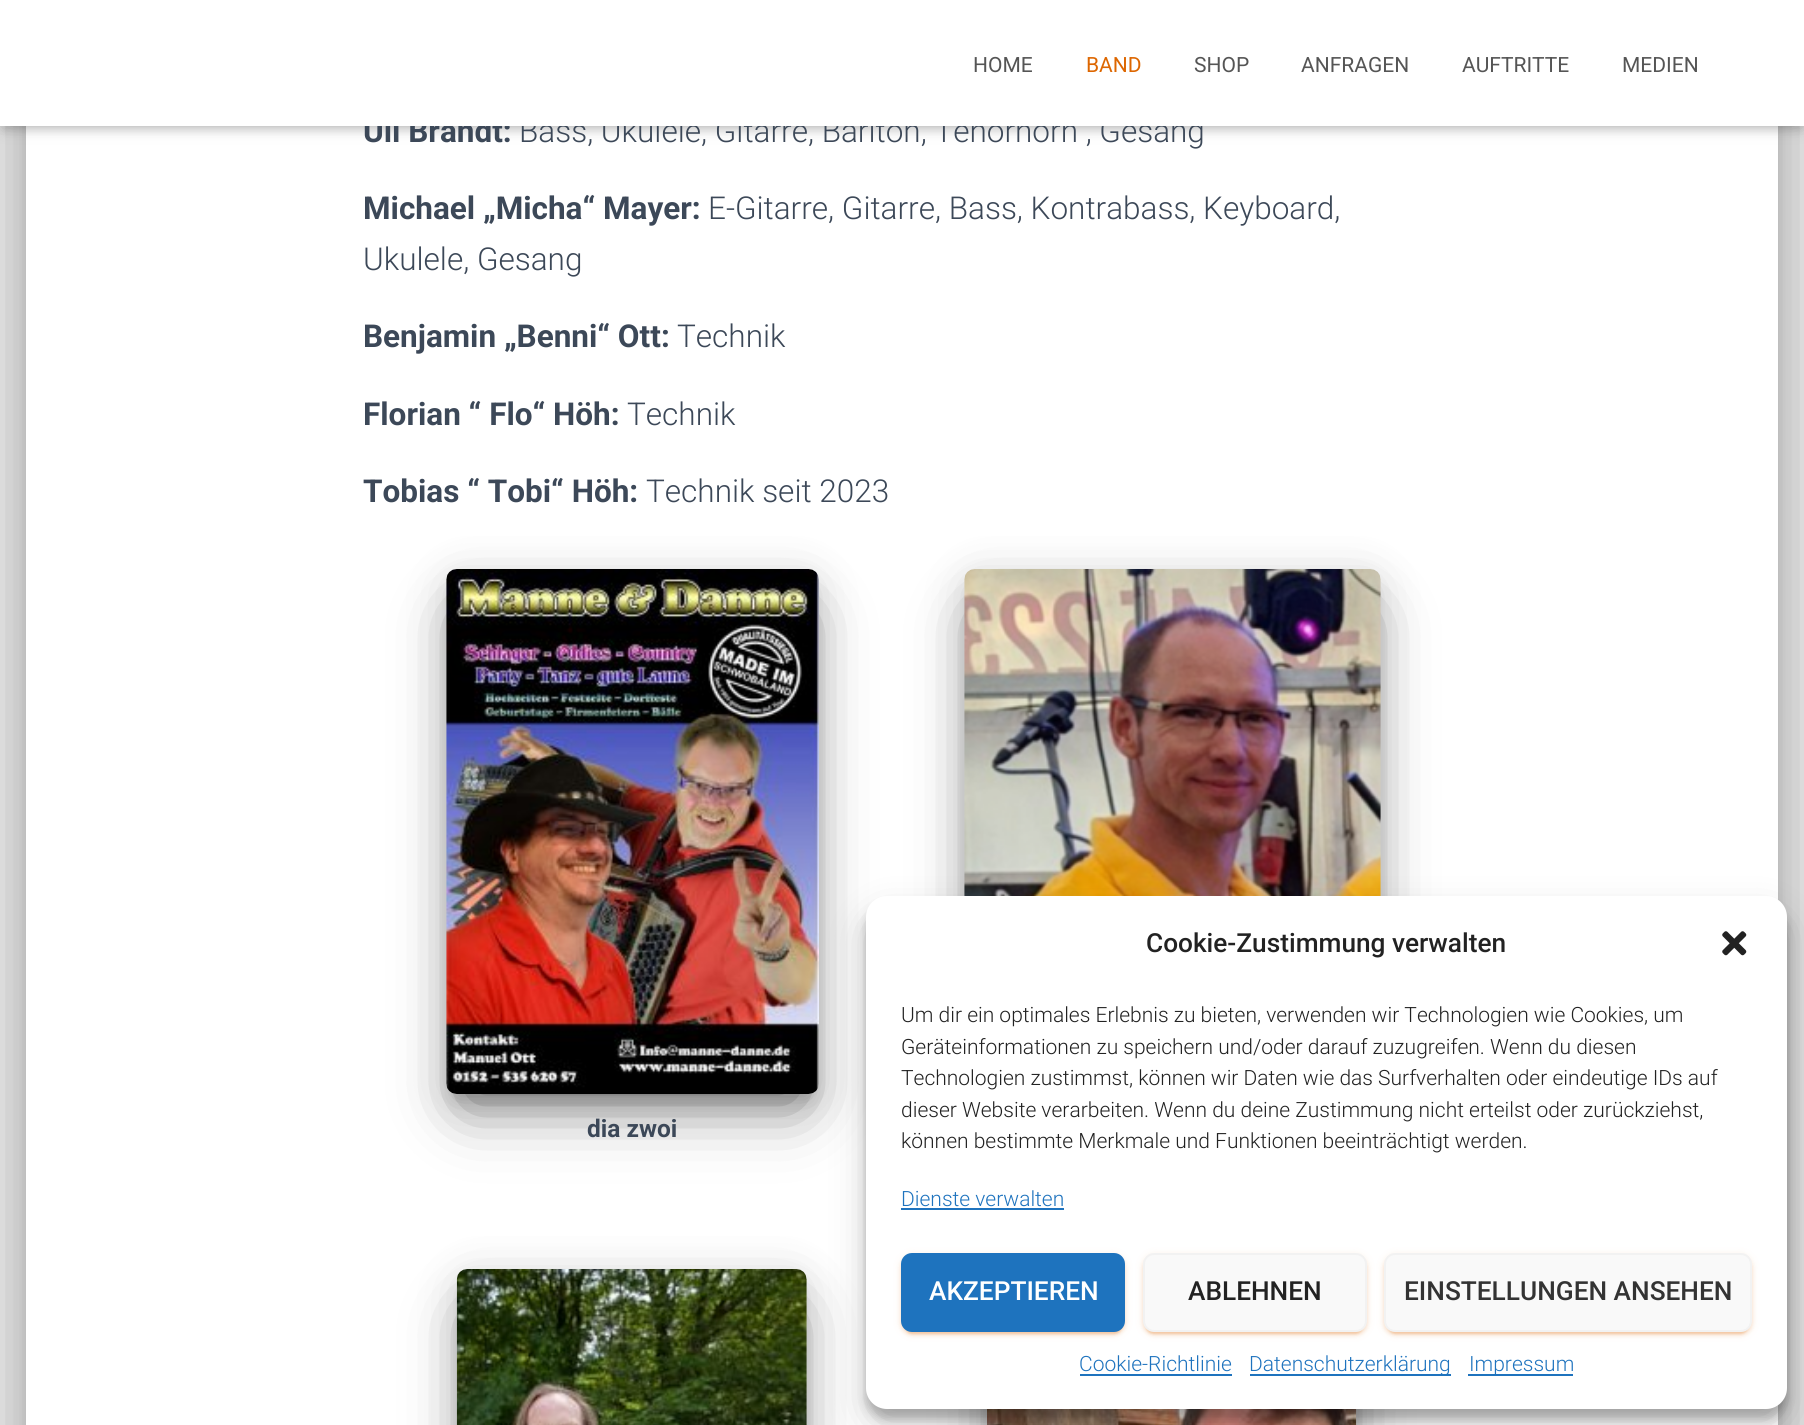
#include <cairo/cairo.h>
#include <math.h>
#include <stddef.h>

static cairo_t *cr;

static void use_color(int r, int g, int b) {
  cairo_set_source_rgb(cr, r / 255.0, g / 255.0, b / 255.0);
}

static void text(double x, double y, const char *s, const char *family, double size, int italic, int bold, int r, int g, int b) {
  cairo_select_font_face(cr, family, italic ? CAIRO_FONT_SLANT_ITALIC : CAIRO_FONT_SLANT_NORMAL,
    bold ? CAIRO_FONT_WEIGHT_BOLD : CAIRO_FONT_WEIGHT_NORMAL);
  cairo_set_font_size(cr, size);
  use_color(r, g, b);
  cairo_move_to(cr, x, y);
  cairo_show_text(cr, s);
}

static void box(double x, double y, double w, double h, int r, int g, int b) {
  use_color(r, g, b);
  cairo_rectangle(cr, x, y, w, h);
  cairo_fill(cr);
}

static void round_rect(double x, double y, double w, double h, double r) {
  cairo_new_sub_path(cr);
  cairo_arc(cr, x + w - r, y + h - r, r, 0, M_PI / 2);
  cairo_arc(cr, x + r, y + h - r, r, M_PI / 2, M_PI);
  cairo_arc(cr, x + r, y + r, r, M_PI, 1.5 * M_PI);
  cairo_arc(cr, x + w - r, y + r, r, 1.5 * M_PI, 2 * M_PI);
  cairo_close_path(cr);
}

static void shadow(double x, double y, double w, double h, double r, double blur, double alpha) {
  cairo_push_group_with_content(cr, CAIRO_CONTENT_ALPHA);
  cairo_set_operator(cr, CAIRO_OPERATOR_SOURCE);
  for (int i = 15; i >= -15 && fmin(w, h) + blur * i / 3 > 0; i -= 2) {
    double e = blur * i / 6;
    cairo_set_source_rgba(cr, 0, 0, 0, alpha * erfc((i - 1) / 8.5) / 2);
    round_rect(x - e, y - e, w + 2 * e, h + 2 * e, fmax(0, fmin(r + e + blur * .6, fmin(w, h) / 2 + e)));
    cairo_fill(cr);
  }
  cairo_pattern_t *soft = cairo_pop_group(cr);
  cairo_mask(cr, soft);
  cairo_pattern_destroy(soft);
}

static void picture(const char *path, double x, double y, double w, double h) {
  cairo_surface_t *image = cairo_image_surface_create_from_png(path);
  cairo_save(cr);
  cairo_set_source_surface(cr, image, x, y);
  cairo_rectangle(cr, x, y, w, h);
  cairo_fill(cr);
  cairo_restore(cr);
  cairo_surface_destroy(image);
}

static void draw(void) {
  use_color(229, 229, 229);
  cairo_paint(cr);
  use_color(0, 0, 0);
  shadow(35, -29, 1734, 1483, 2, 9, 0.2);
  shadow(18, -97, 1769, 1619, 19, 26, 0.12);
  shadow(23, -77, 1759, 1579, 14, 21, 0.14);
  box(26, 126, 1752, 1299, 255, 255, 255);
  use_color(0, 0, 0);
  shadow(4, 11, 1797, 119, 0, 4.5, 0.1);
  shadow(0, 2, 1804, 126, 0, 9, 0.12);
  shadow(11, 12, 1783, 105, 0, 9, 0.42);
  shadow(446, 576, 373, 525, 11, 22, 0.12);
  shadow(467, 618, 331, 483, 0, 33, 0.56);
  shadow(455, 592, 355, 507, 2, 9, 0.2);
  picture("img_01.png", 446, 569, 373, 525);
  shadow(964, 576, 417, 525, 11, 22, 0.12);
  shadow(985, 618, 375, 483, 0, 33, 0.56);
  shadow(973, 592, 399, 507, 2, 9, 0.2);
  picture("img_02.png", 964, 569, 417, 327);
  shadow(457, 1276, 350, 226, 11, 22, 0.12);
  shadow(478, 1318, 308, 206, 0, 33, 0.56);
  shadow(466, 1292, 332, 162, 2, 9, 0.2);
  picture("img_03.png", 456, 1269, 351, 156);
  shadow(987, 1276, 369, 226, 11, 22, 0.12);
  shadow(1008, 1318, 327, 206, 0, 33, 0.56);
  shadow(996, 1292, 352, 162, 2, 9, 0.2);
  picture("img_04.png", 987, 1409, 370, 16);
  shadow(866, 907, 921, 512, 21, 5, 0.23);
  shadow(866, 914, 921, 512, 21, 17.5, 0.19);
  use_color(255, 255, 255);
  round_rect(866, 896, 921, 513, 21);
  cairo_fill(cr);
  picture("img_05.png", 1722, 931, 25, 25);
  box(901, 1208, 163, 2, 30, 115, 190);
  use_color(221, 102, 0);
  shadow(901, 1255, 224, 79, 11, 4.5, 0.12);
  shadow(905, 1262, 217, 72, 7, 1, 0.2);
  shadow(901, 1257, 224, 78, 11, 2, 0.14);
  use_color(30, 115, 190);
  round_rect(902, 1254, 222, 77, 10);
  cairo_fill_preserve(cr);
  cairo_stroke(cr);
  use_color(221, 102, 0);
  shadow(1143, 1255, 224, 79, 11, 4.5, 0.12);
  shadow(1146, 1262, 217, 72, 7, 1, 0.2);
  shadow(1143, 1257, 224, 78, 11, 2, 0.14);
  use_color(249, 249, 249);
  round_rect(1144, 1254, 222, 77, 10);
  cairo_fill_preserve(cr);
  use_color(242, 242, 242);
  cairo_stroke(cr);
  use_color(221, 102, 0);
  shadow(1384, 1255, 368, 79, 11, 4.5, 0.12);
  shadow(1388, 1262, 360, 72, 7, 1, 0.2);
  shadow(1384, 1257, 368, 78, 11, 2, 0.14);
  use_color(249, 249, 249);
  round_rect(1385, 1254, 366, 77, 10);
  cairo_fill_preserve(cr);
  use_color(242, 242, 242);
  cairo_stroke(cr);
  box(1080, 1374, 152, 2, 30, 115, 190);
  box(1250, 1374, 201, 2, 30, 115, 190);
  box(1468, 1374, 105, 2, 30, 115, 190);
  text(363, 142, "Uli Brandt:", "Roboto", 31.5, 0, 1, 60, 72, 88);
  text(519, 142, "Bass, Ukulele, Gitarre, Bariton, Tenorhorn , Gesang", "Roboto Light", 31.5, 0, 0, 60, 72, 88);
  box(0, 0, 1804, 126, 255, 255, 255);
  text(1622, 72, "MEDIEN", "Roboto", 21, 0, 0, 85, 85, 85);
  text(1462, 72, "AUFTRITTE", "Roboto", 21, 0, 0, 85, 85, 85);
  text(1301, 72, "ANFRAGEN", "Roboto", 21, 0, 0, 85, 85, 85);
  text(1194, 72, "SHOP", "Roboto", 21, 0, 0, 85, 85, 85);
  text(1086, 72, "BAND", "Roboto", 21, 0, 0, 221, 102, 0);
  text(973, 72, "HOME", "Roboto", 21, 0, 0, 85, 85, 85);
  text(363, 219, "Michael „Micha“ Mayer:", "Roboto", 31.5, 0, 1, 60, 72, 88);
  text(708, 219, "E-Gitarre, Gitarre, Bass, Kontrabass, Keyboard,", "Roboto Light", 31.5, 0, 0, 60, 72, 88);
  text(363, 270, "Ukulele, Gesang", "Roboto Light", 31.5, 0, 0, 60, 72, 88);
  text(363, 347, "Benjamin „Benni“ Ott:", "Roboto", 31.5, 0, 1, 60, 72, 88);
  text(677, 347, "Technik", "Roboto Light", 31.5, 0, 0, 60, 72, 88);
  text(363, 425, "Florian “ Flo“ Höh:", "Roboto", 31.5, 0, 1, 60, 72, 88);
  text(627, 425, "Technik", "Roboto Light", 31.5, 0, 0, 60, 72, 88);
  text(363, 502, "Tobias “ Tobi“ Höh:", "Roboto", 31.5, 0, 1, 60, 72, 88);
  text(646, 502, "Technik seit 2023", "Roboto Light", 31.5, 0, 0, 60, 72, 88);
  text(587, 1137, "dia zwoi", "Roboto", 24.5, 0, 1, 60, 72, 88);
  text(1146, 952, "Cookie-Zustimmung verwalten", "Roboto Medium", 26.25, 0, 0, 34, 34, 34);
  text(901, 1022, "Um dir ein optimales Erlebnis zu bieten, verwenden wir Technologien wie Cookies, um", "Roboto Light", 21, 0, 0, 34, 34, 34);
  text(901, 1054, "Geräteinformationen zu speichern und/oder darauf zuzugreifen. Wenn du diesen", "Roboto Light", 21, 0, 0, 34, 34, 34);
  text(901, 1085, "Technologien zustimmst, können wir Daten wie das Surfverhalten oder eindeutige IDs auf", "Roboto Light", 21, 0, 0, 34, 34, 34);
  text(901, 1117, "dieser Website verarbeiten. Wenn du deine Zustimmung nicht erteilst oder zurückziehst,", "Roboto Light", 21, 0, 0, 34, 34, 34);
  text(901, 1148, "können bestimmte Merkmale und Funktionen beeinträchtigt werden.", "Roboto Light", 21, 0, 0, 34, 34, 34);
  text(901, 1206, "Dienste verwalten", "Roboto Light", 21, 0, 0, 30, 115, 190);
  text(929, 1300, "AKZEPTIEREN", "Roboto Medium", 26.25, 0, 0, 255, 255, 255);
  text(1188, 1300, "ABLEHNEN", "Roboto Medium", 26.25, 0, 0, 34, 34, 34);
  text(1404, 1300, "EINSTELLUNGEN ANSEHEN", "Roboto Medium", 26.25, 0, 0, 51, 51, 51);
  text(1079, 1371, "Cookie-Richtlinie", "Roboto Light", 21, 0, 0, 30, 115, 190);
  text(1249, 1371, "Datenschutzerklärung", "Roboto Light", 21, 0, 0, 30, 115, 190);
  text(1469, 1371, "Impressum", "Roboto Light", 21, 0, 0, 30, 115, 190);
}

int main(void) {
  cairo_surface_t *surface = cairo_image_surface_create(CAIRO_FORMAT_RGB24, 1804, 1425);
  cr = cairo_create(surface);
  cairo_font_options_t *options = cairo_font_options_create();
  cairo_font_options_set_hint_metrics(options, CAIRO_HINT_METRICS_OFF);
  cairo_font_options_set_hint_style(options, CAIRO_HINT_STYLE_NONE);
  cairo_set_font_options(cr, options);
  cairo_set_miter_limit(cr, 4);
  draw();
  cairo_surface_write_to_png(surface, "out.png");
  cairo_font_options_destroy(options);
  cairo_destroy(cr);
  cairo_surface_destroy(surface);
  return 0;
}
